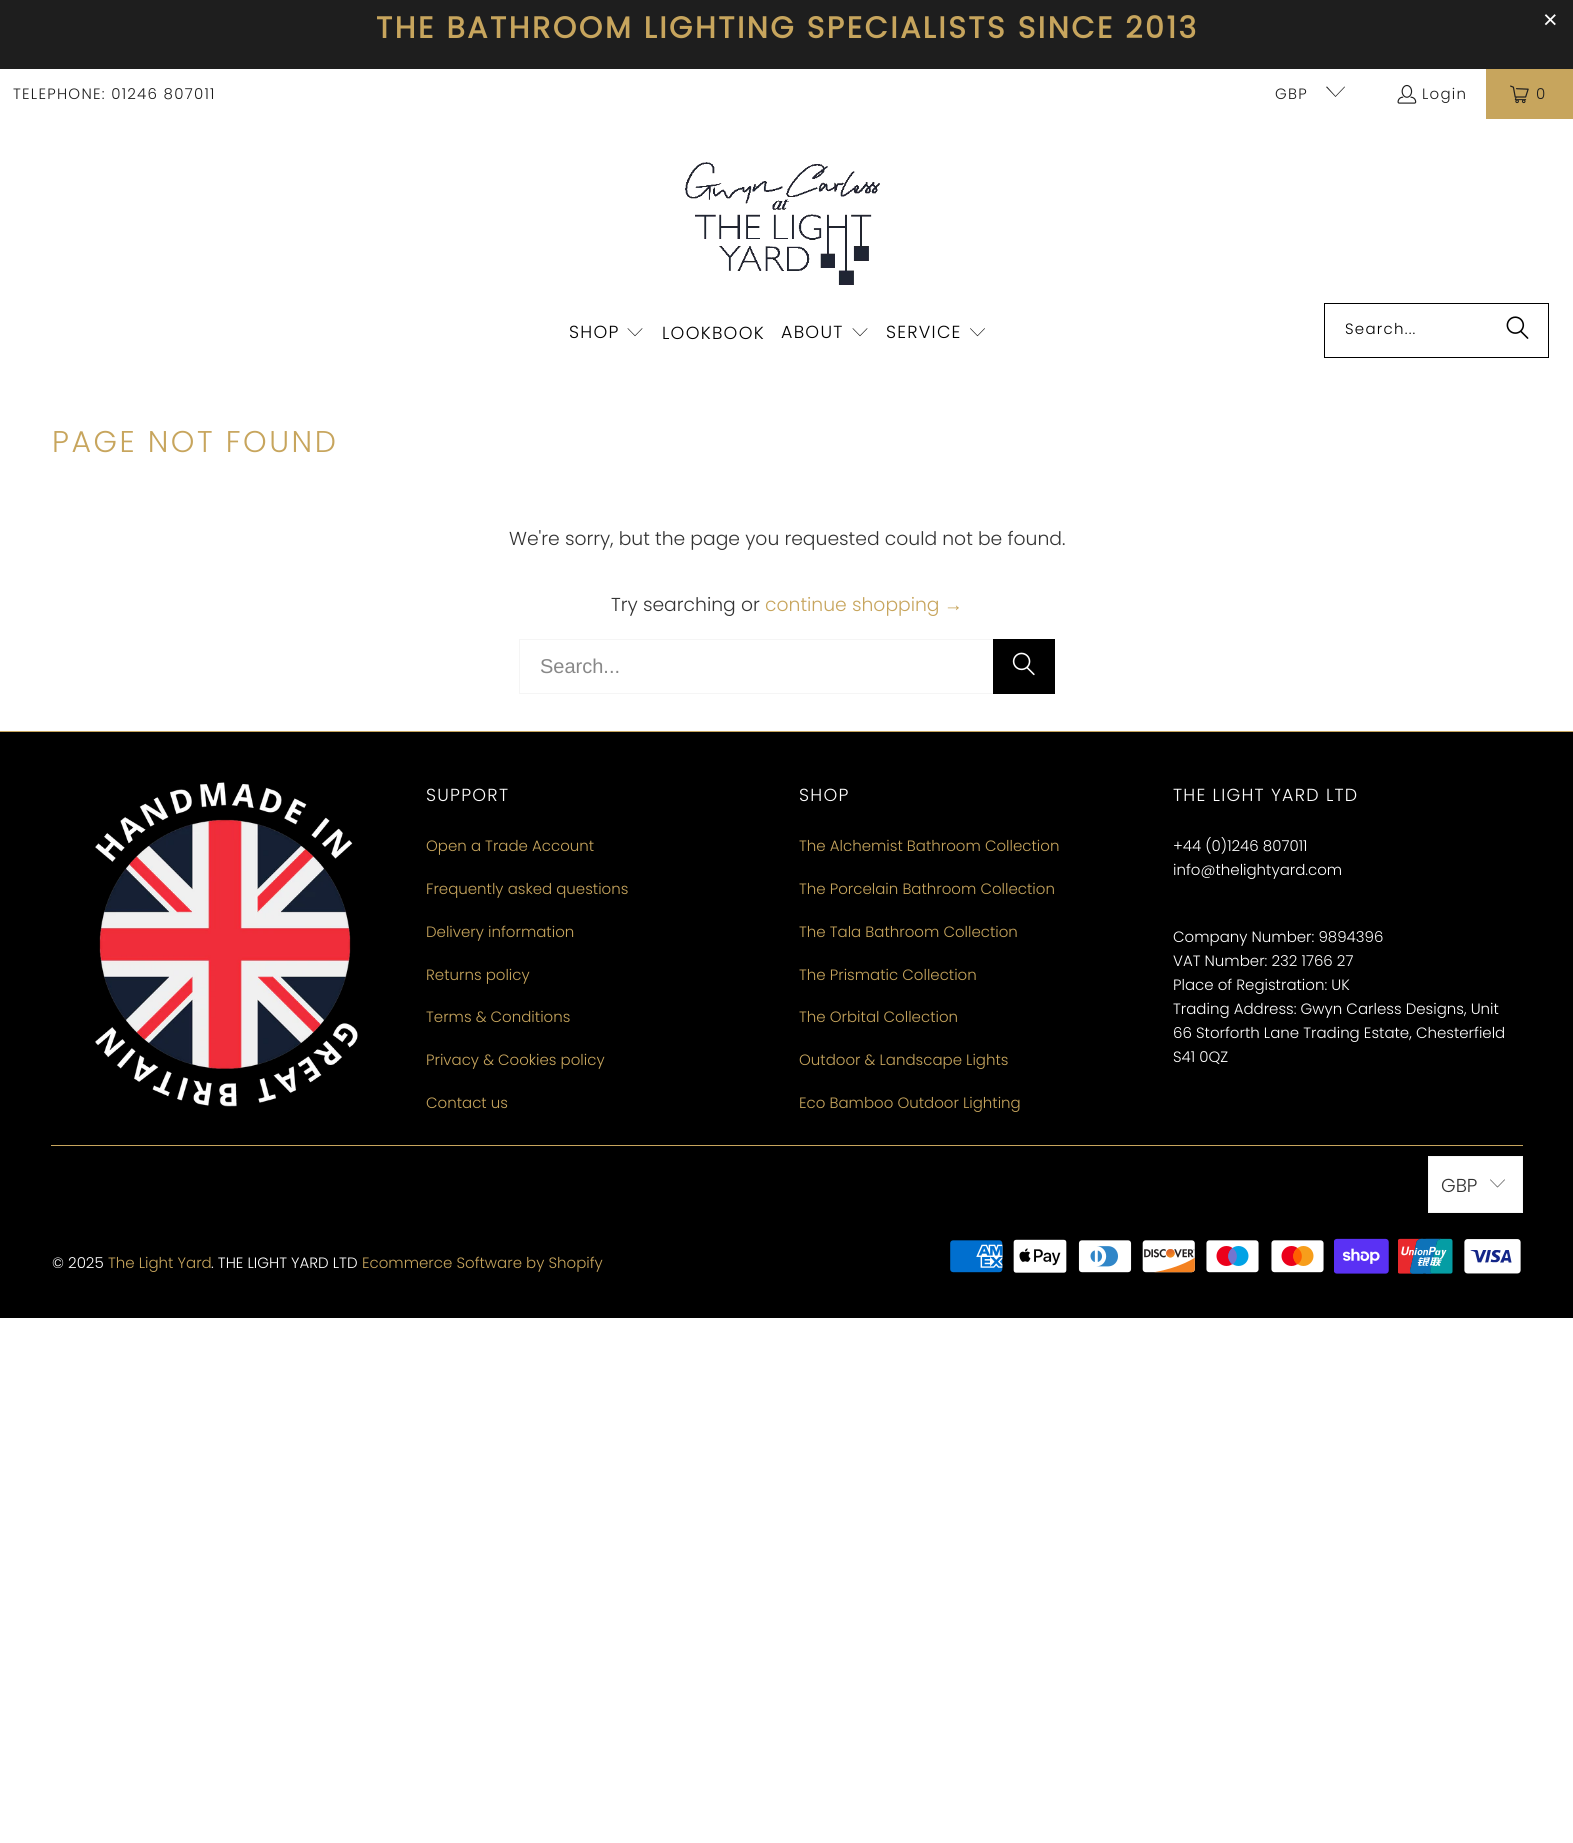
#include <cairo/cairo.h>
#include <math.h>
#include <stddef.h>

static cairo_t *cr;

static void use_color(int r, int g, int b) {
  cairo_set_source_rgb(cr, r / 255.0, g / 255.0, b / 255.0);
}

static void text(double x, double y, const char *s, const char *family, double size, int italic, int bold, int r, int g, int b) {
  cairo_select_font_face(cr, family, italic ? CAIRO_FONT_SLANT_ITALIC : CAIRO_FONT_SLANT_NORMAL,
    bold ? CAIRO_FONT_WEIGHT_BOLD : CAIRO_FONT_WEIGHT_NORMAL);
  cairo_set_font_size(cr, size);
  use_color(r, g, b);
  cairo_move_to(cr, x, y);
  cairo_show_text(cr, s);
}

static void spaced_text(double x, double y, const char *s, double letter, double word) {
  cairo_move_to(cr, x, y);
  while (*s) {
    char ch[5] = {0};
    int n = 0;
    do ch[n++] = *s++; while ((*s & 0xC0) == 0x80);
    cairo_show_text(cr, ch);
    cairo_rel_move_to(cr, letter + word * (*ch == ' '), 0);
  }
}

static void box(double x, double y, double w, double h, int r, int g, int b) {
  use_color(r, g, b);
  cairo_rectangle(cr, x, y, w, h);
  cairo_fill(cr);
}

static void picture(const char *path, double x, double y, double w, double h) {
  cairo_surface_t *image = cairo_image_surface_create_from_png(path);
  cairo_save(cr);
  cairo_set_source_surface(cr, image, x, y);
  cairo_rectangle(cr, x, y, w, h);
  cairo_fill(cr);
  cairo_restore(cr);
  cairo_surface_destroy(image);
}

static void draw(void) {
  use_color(255, 255, 255);
  cairo_paint(cr);
  box(0, 0, 1573, 69, 30, 30, 30);
  cairo_new_path(cr);
  cairo_move_to(cr, 1335.5, 97);
  cairo_line_to(cr, 1326, 87);
  cairo_line_to(cr, 1327, 86.5);
  cairo_line_to(cr, 1335.5, 96);
  cairo_line_to(cr, 1344.5, 86.5);
  cairo_line_to(cr, 1345, 87);
  cairo_close_path(cr);
  cairo_fill(cr);
  picture("img_01.png", 1397, 84, 20, 20);
  box(1486, 69, 87, 50, 199, 165, 93);
  picture("img_02.png", 1510, 85, 19, 19);
  picture("img_03.png", 685, 162, 195, 123);
  picture("img_04.png", 627, 328, 16, 9);
  picture("img_04.png", 852, 328, 16, 9);
  picture("img_05.png", 970, 328, 15, 9);
  cairo_rectangle(cr, 1324.5, 303.5, 224, 54);
  use_color(0, 0, 0);
  cairo_set_line_width(cr, 1);
  cairo_stroke(cr);
  picture("img_06.png", 1506, 316, 23, 23);
  cairo_rectangle(cr, 519.5, 639.5, 535, 54);
  use_color(245, 245, 245);
  cairo_stroke(cr);
  box(993, 639, 62, 55, 0, 0, 0);
  picture("img_07.png", 1012, 652, 23, 24);
  box(0, 732, 1573, 586, 0, 0, 0);
  box(0, 731, 1573, 1, 199, 165, 93);
  picture("img_08.png", 95, 782, 263, 325);
  box(51, 1145, 1472, 1, 199, 165, 93);
  use_color(255, 255, 255);
  cairo_rectangle(cr, 1428.5, 1156.5, 94, 56);
  cairo_fill_preserve(cr);
  use_color(245, 245, 245);
  cairo_stroke(cr);
  picture("img_09.png", 1490, 1179, 15, 9);
  picture("img_10.png", 950, 1240, 53, 33);
  picture("img_11.png", 1013, 1239, 54, 34);
  picture("img_12.png", 1078, 1240, 54, 33);
  picture("img_13.png", 1142, 1240, 53, 33);
  picture("img_14.png", 1206, 1240, 53, 33);
  picture("img_15.png", 1271, 1240, 53, 33);
  picture("img_16.png", 1334, 1238, 55, 36);
  picture("img_17.png", 1398, 1238, 55, 36);
  picture("img_18.png", 1464, 1239, 57, 35);
  cairo_select_font_face(cr, "Poppins", CAIRO_FONT_SLANT_NORMAL, CAIRO_FONT_WEIGHT_BOLD);
  cairo_set_font_size(cr, 30);
  use_color(199, 165, 93);
  spaced_text(376, 38, "THE BATHROOM LIGHTING SPECIALISTS SINCE 2013", 2.5, 0);
  cairo_select_font_face(cr, "Liberation Sans", CAIRO_FONT_SLANT_NORMAL, CAIRO_FONT_WEIGHT_NORMAL);
  cairo_set_font_size(cr, 25);
  use_color(255, 255, 255);
  spaced_text(1543, 28, "×", 2.5, 0);
  cairo_select_font_face(cr, "Poppins Light", CAIRO_FONT_SLANT_NORMAL, CAIRO_FONT_WEIGHT_NORMAL);
  cairo_set_font_size(cr, 15);
  use_color(30, 30, 30);
  spaced_text(13, 99, "TELEPHONE: 01246 807011", 1.25, 0);
  spaced_text(1275, 99, "GBP", 1.25, 0);
  spaced_text(1422, 99, "Login", 1.25, 0);
  spaced_text(1536, 99, "0", 1.25, 0);
  cairo_set_font_size(cr, 17.5);
  use_color(0, 0, 0);
  spaced_text(569, 338, "SHOP", 1.25, 0);
  spaced_text(662, 339, "LOOKBOOK", 1.25, 0);
  spaced_text(781, 338, "ABOUT", 1.25, 0);
  spaced_text(886, 338, "SERVICE", 1.25, 0);
  cairo_set_font_size(cr, 15);
  spaced_text(1345, 334, "Search...", 1.25, 0);
  cairo_set_font_size(cr, 30);
  use_color(199, 165, 93);
  spaced_text(52, 452, "PAGE NOT FOUND", 2.5, 0);
  text(509, 545, "We're sorry, but the page you requested could not be found.", "Poppins Light", 18.75, 0, 0, 51, 51, 51);
  text(611, 611, "Try searching or", "Poppins Light", 18.75, 0, 0, 51, 51, 51);
  text(765, 611, "continue shopping", "Poppins Light", 18.75, 0, 0, 199, 165, 93);
  text(944, 611, "→", "Liberation Sans", 18.75, 0, 0, 199, 165, 93);
  text(540, 673, "Search...", "Liberation Sans", 20, 0, 0, 136, 136, 136);
  cairo_select_font_face(cr, "Poppins Light", CAIRO_FONT_SLANT_NORMAL, CAIRO_FONT_WEIGHT_NORMAL);
  cairo_set_font_size(cr, 17.5);
  use_color(255, 255, 255);
  spaced_text(426, 801, "SUPPORT", 1.25, 0);
  text(426, 851, "Open a Trade Account", "Poppins Light", 15, 0, 0, 199, 165, 93);
  text(426, 894, "Frequently asked questions", "Poppins Light", 15, 0, 0, 199, 165, 93);
  text(426, 937, "Delivery information", "Poppins Light", 15, 0, 0, 199, 165, 93);
  text(426, 980, "Returns policy", "Poppins Light", 15, 0, 0, 199, 165, 93);
  text(426, 1022, "Terms & Conditions", "Poppins Light", 15, 0, 0, 199, 165, 93);
  text(426, 1065, "Privacy & Cookies policy", "Poppins Light", 15, 0, 0, 199, 165, 93);
  text(426, 1108, "Contact us", "Poppins Light", 15, 0, 0, 199, 165, 93);
  cairo_set_font_size(cr, 17.5);
  use_color(255, 255, 255);
  spaced_text(799, 801, "SHOP", 1.25, 0);
  text(799, 851, "The Alchemist Bathroom Collection", "Poppins Light", 15, 0, 0, 199, 165, 93);
  text(799, 894, "The Porcelain Bathroom Collection", "Poppins Light", 15, 0, 0, 199, 165, 93);
  text(799, 937, "The Tala Bathroom Collection", "Poppins Light", 15, 0, 0, 199, 165, 93);
  text(799, 980, "The Prismatic Collection", "Poppins Light", 15, 0, 0, 199, 165, 93);
  text(799, 1022, "The Orbital Collection", "Poppins Light", 15, 0, 0, 199, 165, 93);
  text(799, 1065, "Outdoor & Landscape Lights", "Poppins Light", 15, 0, 0, 199, 165, 93);
  text(799, 1108, "Eco Bamboo Outdoor Lighting", "Poppins Light", 15, 0, 0, 199, 165, 93);
  cairo_set_font_size(cr, 17.5);
  use_color(255, 255, 255);
  spaced_text(1173, 801, "THE LIGHT YARD LTD", 1.25, 0);
  text(1173, 851, "+44 (0)1246 807011", "Poppins Light", 15, 0, 0, 255, 255, 255);
  text(1173, 875, "info@thelightyard.com", "Poppins Light", 15, 0, 0, 255, 255, 255);
  text(1173, 942, "Company Number: 9894396", "Poppins Light", 15, 0, 0, 255, 255, 255);
  text(1173, 966, "VAT Number: 232 1766 27", "Poppins Light", 15, 0, 0, 255, 255, 255);
  text(1173, 990, "Place of Registration: UK", "Poppins Light", 15, 0, 0, 255, 255, 255);
  text(1173, 1014, "Trading Address: Gwyn Carless Designs, Unit", "Poppins Light", 15, 0, 0, 255, 255, 255);
  text(1173, 1038, "66 Storforth Lane Trading Estate, Chesterfield", "Poppins Light", 15, 0, 0, 255, 255, 255);
  text(1173, 1062, "S41 0QZ", "Poppins Light", 15, 0, 0, 255, 255, 255);
  text(1441, 1192, "GBP", "Poppins Light", 18.75, 0, 0, 51, 51, 51);
  text(52, 1268, "© 2025", "Poppins Light", 15, 0, 0, 255, 255, 255);
  text(108, 1268, "The Light Yard", "Poppins Light", 15, 0, 0, 199, 165, 93);
  text(211, 1268, ". THE LIGHT YARD LTD", "Poppins Light", 15, 0, 0, 255, 255, 255);
  text(362, 1268, "Ecommerce Software by Shopify", "Poppins Light", 15, 0, 0, 199, 165, 93);
}

int main(void) {
  cairo_surface_t *surface = cairo_image_surface_create(CAIRO_FORMAT_RGB24, 1573, 1843);
  cr = cairo_create(surface);
  cairo_font_options_t *options = cairo_font_options_create();
  cairo_font_options_set_hint_metrics(options, CAIRO_HINT_METRICS_OFF);
  cairo_font_options_set_hint_style(options, CAIRO_HINT_STYLE_NONE);
  cairo_set_font_options(cr, options);
  cairo_set_miter_limit(cr, 4);
  draw();
  cairo_surface_write_to_png(surface, "out.png");
  cairo_font_options_destroy(options);
  cairo_destroy(cr);
  cairo_surface_destroy(surface);
  return 0;
}
